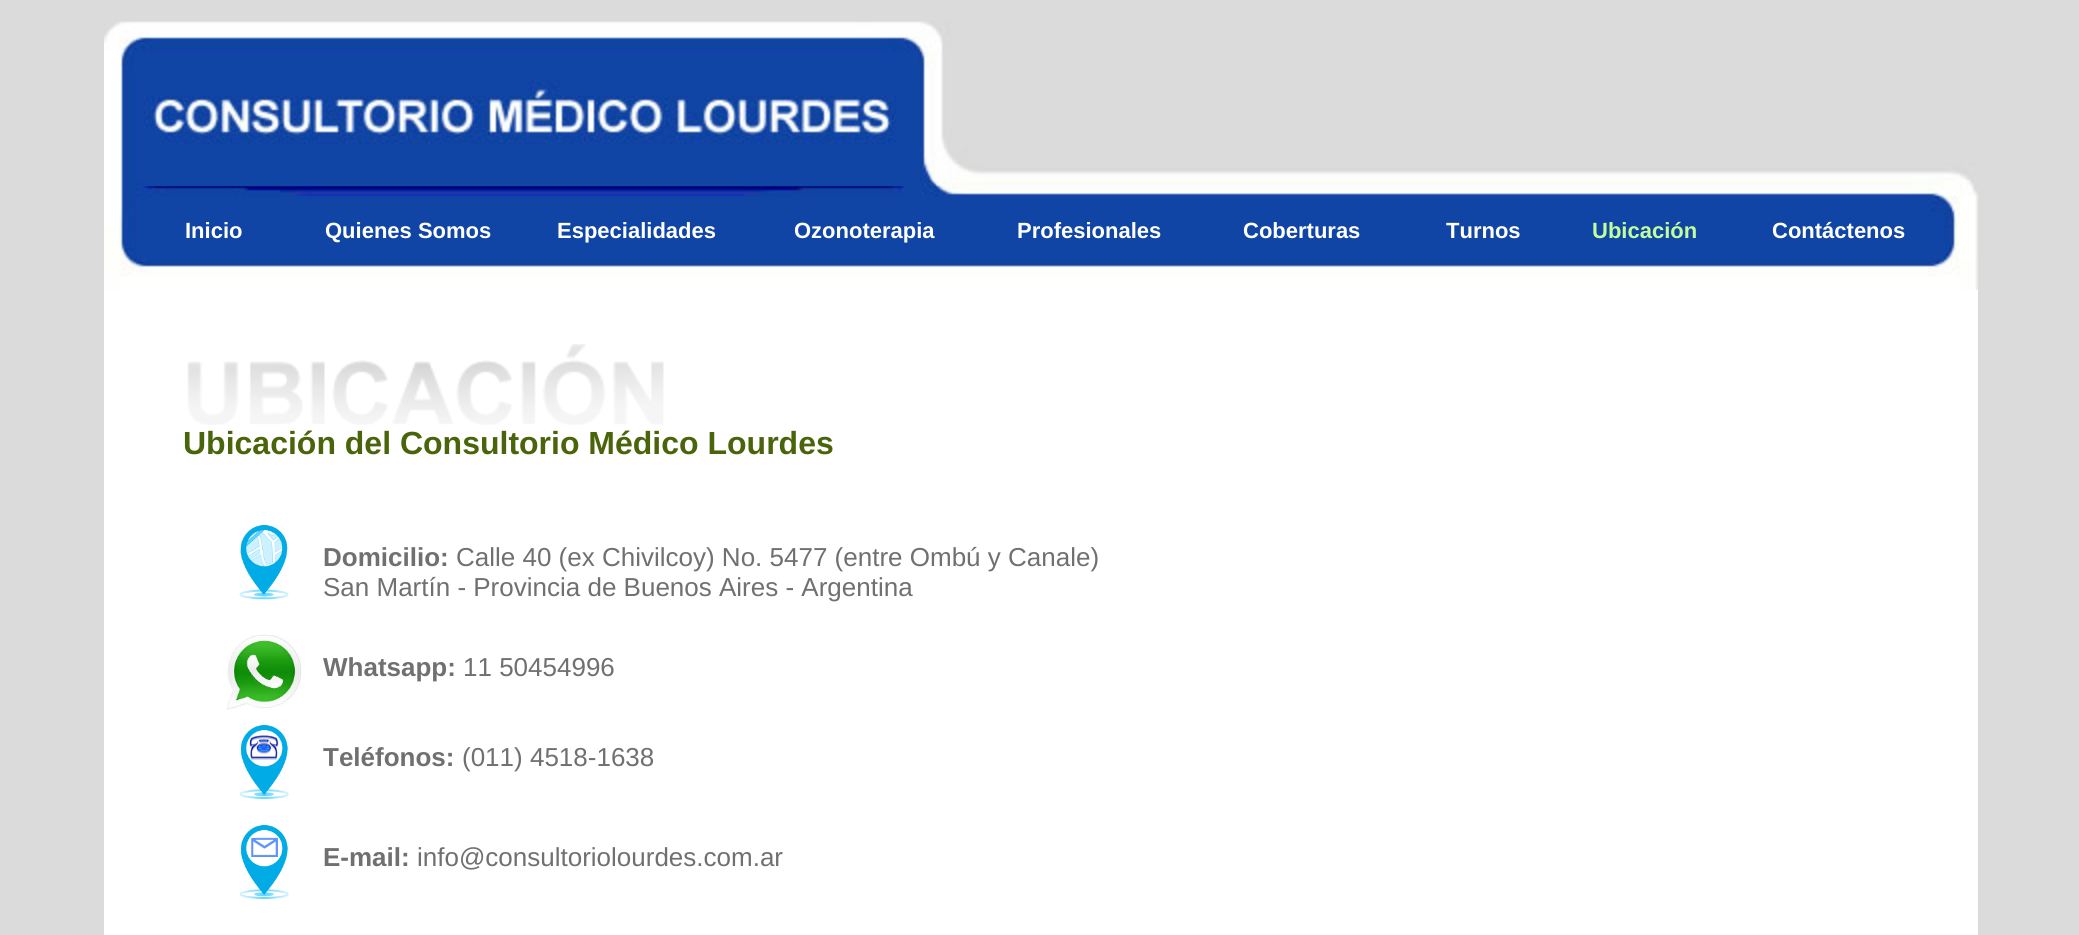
#include <cairo/cairo.h>
#include <math.h>
#include <stddef.h>

static cairo_t *cr;

static void use_color(int r, int g, int b) {
  cairo_set_source_rgb(cr, r / 255.0, g / 255.0, b / 255.0);
}

static void text(double x, double y, const char *s, const char *family, double size, int italic, int bold, int r, int g, int b) {
  cairo_select_font_face(cr, family, italic ? CAIRO_FONT_SLANT_ITALIC : CAIRO_FONT_SLANT_NORMAL,
    bold ? CAIRO_FONT_WEIGHT_BOLD : CAIRO_FONT_WEIGHT_NORMAL);
  cairo_set_font_size(cr, size);
  use_color(r, g, b);
  cairo_move_to(cr, x, y);
  cairo_show_text(cr, s);
}

static void box(double x, double y, double w, double h, int r, int g, int b) {
  use_color(r, g, b);
  cairo_rectangle(cr, x, y, w, h);
  cairo_fill(cr);
}

static void picture(const char *path, double x, double y, double w, double h) {
  cairo_surface_t *image = cairo_image_surface_create_from_png(path);
  cairo_save(cr);
  cairo_set_source_surface(cr, image, x, y);
  cairo_rectangle(cr, x, y, w, h);
  cairo_fill(cr);
  cairo_restore(cr);
  cairo_surface_destroy(image);
}

static void draw(void) {
  use_color(219, 219, 219);
  cairo_paint(cr);
  picture("img_01.png", 104, 21, 1874, 269);
  picture("img_02.png", 144, 80, 760, 106);
  box(104, 290, 1874, 645, 255, 255, 255);
  picture("img_03.png", 187, 344, 477, 81);
  picture("img_04.png", 239, 525, 50, 75);
  picture("img_05.png", 227, 634, 75, 76);
  picture("img_06.png", 239, 725, 50, 74);
  picture("img_07.png", 239, 825, 50, 74);
  text(185, 238, "Inicio", "Liberation Sans", 22, 0, 1, 255, 255, 255);
  text(325, 238, "Quienes Somos", "Liberation Sans", 22, 0, 1, 255, 255, 255);
  text(557, 238, "Especialidades", "Liberation Sans", 22, 0, 1, 255, 255, 255);
  text(794, 238, "Ozonoterapia", "Liberation Sans", 22, 0, 1, 255, 255, 255);
  text(1017, 238, "Profesionales", "Liberation Sans", 22, 0, 1, 255, 255, 255);
  text(1243, 238, "Coberturas", "Liberation Sans", 22, 0, 1, 255, 255, 255);
  text(1446, 238, "Turnos", "Liberation Sans", 22, 0, 1, 255, 255, 255);
  text(1592, 238, "Ubicación", "Liberation Sans", 22, 0, 1, 192, 255, 156);
  text(1772, 238, "Contáctenos", "Liberation Sans", 22, 0, 1, 255, 255, 255);
  text(183, 454, "Ubicación del Consultorio Médico Lourdes", "Liberation Sans", 32, 0, 1, 74, 100, 11);
  text(323, 566, "Domicilio:", "Liberation Sans", 26, 0, 1, 112, 112, 112);
  text(456, 566, "Calle 40 (ex Chivilcoy) No. 5477 (entre Ombú y Canale)", "Liberation Sans", 26, 0, 0, 112, 112, 112);
  text(323, 596, "San Martín - Provincia de Buenos Aires - Argentina", "Liberation Sans", 26, 0, 0, 112, 112, 112);
  text(323, 676, "Whatsapp:", "Liberation Sans", 26, 0, 1, 112, 112, 112);
  text(463, 676, "11 50454996", "Liberation Sans", 26, 0, 0, 112, 112, 112);
  text(323, 766, "Teléfonos:", "Liberation Sans", 26, 0, 1, 112, 112, 112);
  text(462, 766, "(011) 4518-1638", "Liberation Sans", 26, 0, 0, 112, 112, 112);
  text(323, 866, "E-mail:", "Liberation Sans", 26, 0, 1, 112, 112, 112);
  text(417, 866, "info@consultoriolourdes.com.ar", "Liberation Sans", 26, 0, 0, 112, 112, 112);
}

int main(void) {
  cairo_surface_t *surface = cairo_image_surface_create(CAIRO_FORMAT_RGB24, 2079, 935);
  cr = cairo_create(surface);
  cairo_font_options_t *options = cairo_font_options_create();
  cairo_font_options_set_hint_metrics(options, CAIRO_HINT_METRICS_OFF);
  cairo_font_options_set_hint_style(options, CAIRO_HINT_STYLE_NONE);
  cairo_set_font_options(cr, options);
  cairo_set_miter_limit(cr, 4);
  draw();
  cairo_surface_write_to_png(surface, "out.png");
  cairo_font_options_destroy(options);
  cairo_destroy(cr);
  cairo_surface_destroy(surface);
  return 0;
}
